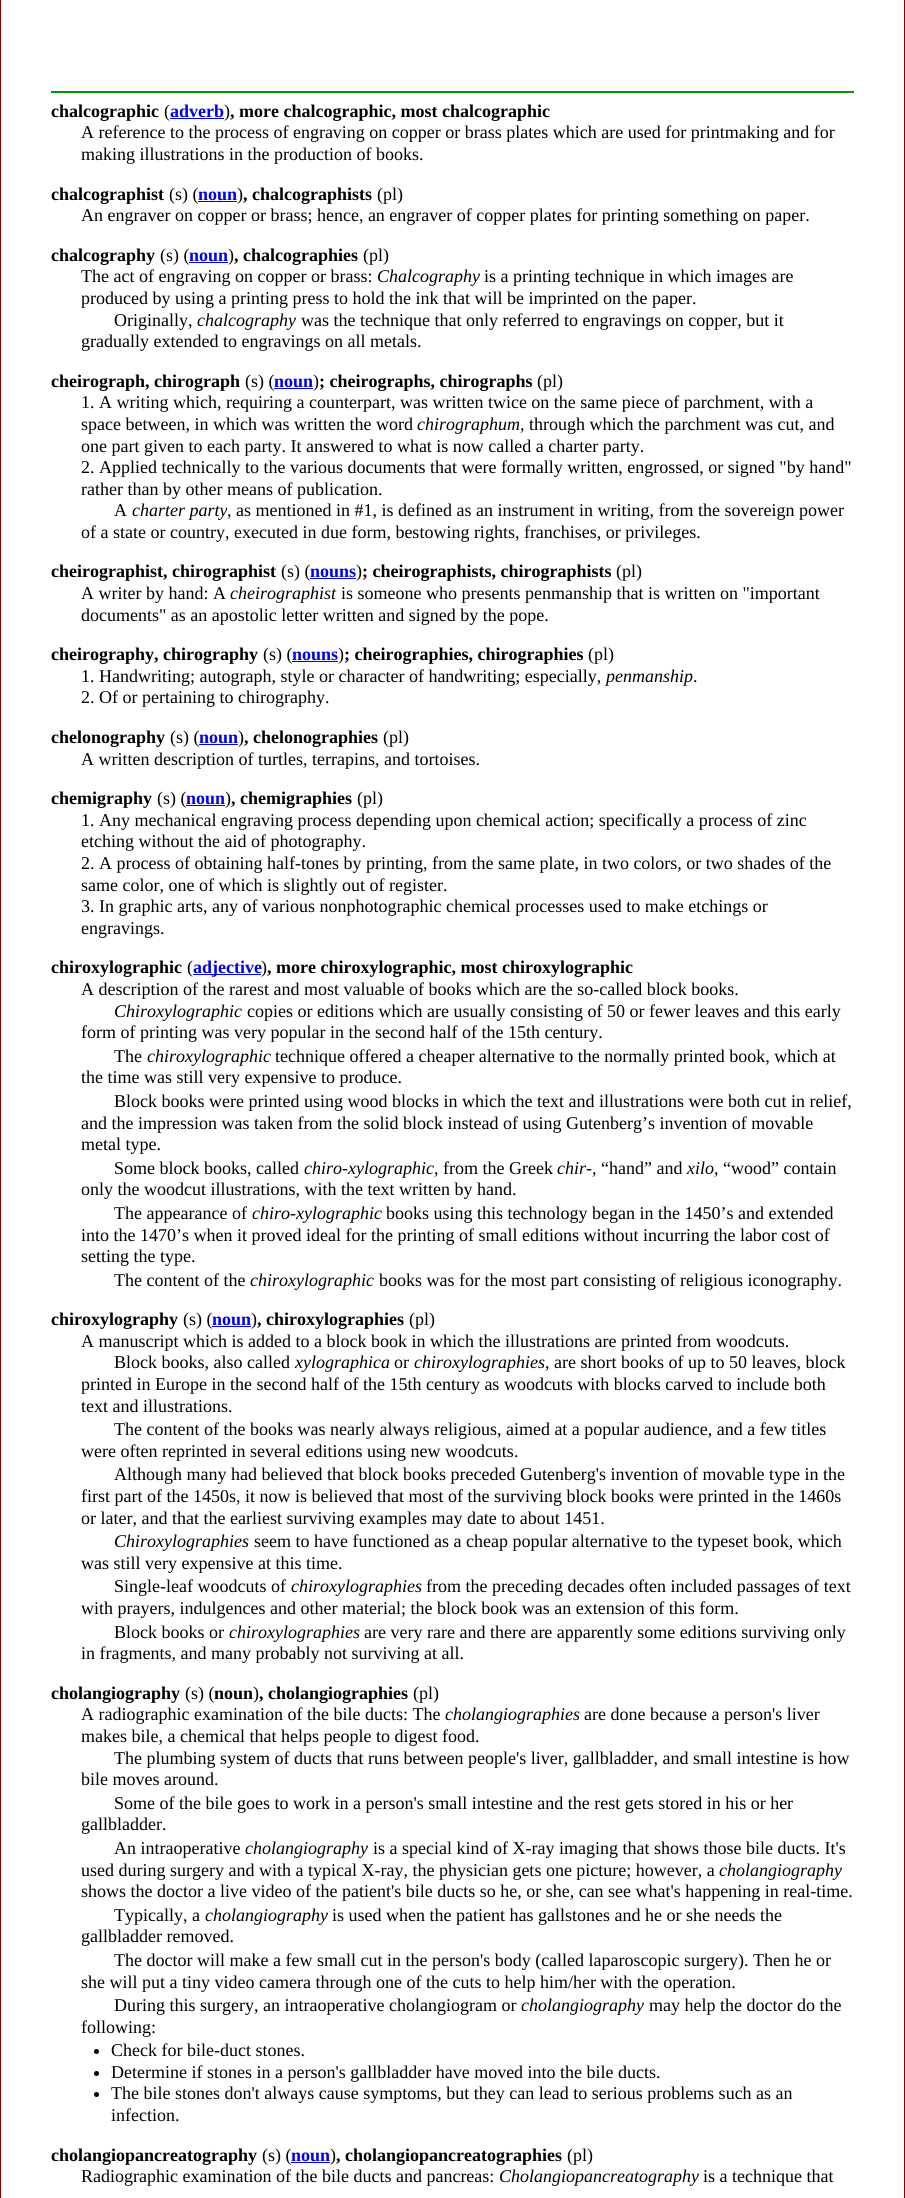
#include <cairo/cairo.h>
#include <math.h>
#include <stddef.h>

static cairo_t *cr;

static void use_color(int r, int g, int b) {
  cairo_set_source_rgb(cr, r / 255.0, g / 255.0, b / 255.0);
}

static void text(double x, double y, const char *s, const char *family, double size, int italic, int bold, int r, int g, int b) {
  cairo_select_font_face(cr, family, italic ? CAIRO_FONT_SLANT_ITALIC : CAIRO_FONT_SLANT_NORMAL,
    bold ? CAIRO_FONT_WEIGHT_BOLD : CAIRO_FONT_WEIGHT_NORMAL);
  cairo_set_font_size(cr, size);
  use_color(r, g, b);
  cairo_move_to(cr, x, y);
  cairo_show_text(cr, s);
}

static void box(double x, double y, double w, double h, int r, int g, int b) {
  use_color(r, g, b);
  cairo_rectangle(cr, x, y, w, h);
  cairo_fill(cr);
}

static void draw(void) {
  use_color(255, 255, 255);
  cairo_paint(cr);
  cairo_rectangle(cr, 0.5, -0.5, 904, 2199);
  use_color(136, 0, 0);
  cairo_set_line_width(cr, 1);
  cairo_stroke(cr);
  box(51, 91, 803, 2, 0, 153, 0);
  box(170, 118, 54, 1, 0, 0, 238);
  box(198, 201, 39, 1, 0, 0, 238);
  box(189, 262, 39, 1, 0, 0, 238);
  box(274, 388, 39, 1, 0, 0, 238);
  box(310, 578, 46, 1, 0, 0, 238);
  box(292, 661, 46, 1, 0, 0, 238);
  box(199, 744, 39, 1, 0, 0, 238);
  box(186, 805, 39, 1, 0, 0, 238);
  box(193, 974, 68, 1, 0, 0, 238);
  box(212, 1326, 39, 1, 0, 0, 238);
  use_color(0, 0, 0);
  cairo_arc(cr, 96.5, 2051.5, 2.5, 0, 2 * M_PI);
  cairo_fill(cr);
  cairo_arc(cr, 96.5, 2073.5, 2.5, 0, 2 * M_PI);
  cairo_fill(cr);
  cairo_arc(cr, 96.5, 2094.5, 2.5, 0, 2 * M_PI);
  cairo_fill(cr);
  box(291, 2162, 39, 1, 0, 0, 238);
  text(51, 117, "chalcographic", "Liberation Serif", 18, 0, 1, 0, 0, 0);
  text(164, 117, "(", "Liberation Serif", 18, 0, 0, 0, 0, 0);
  text(170, 117, "adverb", "Liberation Serif", 18, 0, 1, 0, 0, 238);
  text(224, 117, ")", "Liberation Serif", 18, 0, 0, 0, 0, 0);
  text(230, 117, ", more chalcographic, most chalcographic", "Liberation Serif", 18, 0, 1, 0, 0, 0);
  text(81, 138, "A reference to the process of engraving on copper or brass plates which are used for printmaking and for", "Liberation Serif", 18, 0, 0, 0, 0, 0);
  text(81, 160, "making illustrations in the production of books.", "Liberation Serif", 18, 0, 0, 0, 0, 0);
  text(51, 200, "chalcographist", "Liberation Serif", 18, 0, 1, 0, 0, 0);
  text(169, 200, "(s) (", "Liberation Serif", 18, 0, 0, 0, 0, 0);
  text(198, 200, "noun", "Liberation Serif", 18, 0, 1, 0, 0, 238);
  text(237, 200, ")", "Liberation Serif", 18, 0, 0, 0, 0, 0);
  text(243, 200, ", chalcographists", "Liberation Serif", 18, 0, 1, 0, 0, 0);
  text(377, 200, "(pl)", "Liberation Serif", 18, 0, 0, 0, 0, 0);
  text(81, 221, "An engraver on copper or brass; hence, an engraver of copper plates for printing something on paper.", "Liberation Serif", 18, 0, 0, 0, 0, 0);
  text(51, 261, "chalcography", "Liberation Serif", 18, 0, 1, 0, 0, 0);
  text(160, 261, "(s) (", "Liberation Serif", 18, 0, 0, 0, 0, 0);
  text(189, 261, "noun", "Liberation Serif", 18, 0, 1, 0, 0, 238);
  text(228, 261, ")", "Liberation Serif", 18, 0, 0, 0, 0, 0);
  text(234, 261, ", chalcographies", "Liberation Serif", 18, 0, 1, 0, 0, 0);
  text(363, 261, "(pl)", "Liberation Serif", 18, 0, 0, 0, 0, 0);
  text(81, 282, "The act of engraving on copper or brass:", "Liberation Serif", 18, 0, 0, 0, 0, 0);
  text(377, 282, "Chalcography", "Liberation Serif", 18, 1, 0, 0, 0, 0);
  text(484, 282, "is a printing technique in which images are", "Liberation Serif", 18, 0, 0, 0, 0, 0);
  text(81, 304, "produced by using a printing press to hold the ink that will be imprinted on the paper.", "Liberation Serif", 18, 0, 0, 0, 0, 0);
  text(114, 326, "Originally,", "Liberation Serif", 18, 0, 0, 0, 0, 0);
  text(197, 326, "chalcography", "Liberation Serif", 18, 1, 0, 0, 0, 0);
  text(301, 326, "was the technique that only referred to engravings on copper, but it", "Liberation Serif", 18, 0, 0, 0, 0, 0);
  text(81, 347, "gradually extended to engravings on all metals.", "Liberation Serif", 18, 0, 0, 0, 0, 0);
  text(51, 387, "cheirograph, chirograph", "Liberation Serif", 18, 0, 1, 0, 0, 0);
  text(245, 387, "(s) (", "Liberation Serif", 18, 0, 0, 0, 0, 0);
  text(274, 387, "noun", "Liberation Serif", 18, 0, 1, 0, 0, 238);
  text(313, 387, ")", "Liberation Serif", 18, 0, 0, 0, 0, 0);
  text(319, 387, "; cheirographs, chirographs", "Liberation Serif", 18, 0, 1, 0, 0, 0);
  text(537, 387, "(pl)", "Liberation Serif", 18, 0, 0, 0, 0, 0);
  text(81, 408, "1. A writing which, requiring a counterpart, was written twice on the same piece of parchment, with a", "Liberation Serif", 18, 0, 0, 0, 0, 0);
  text(81, 430, "space between, in which was written the word", "Liberation Serif", 18, 0, 0, 0, 0, 0);
  text(417, 430, "chirographum", "Liberation Serif", 18, 1, 0, 0, 0, 0);
  text(520, 430, ", through which the parchment was cut, and", "Liberation Serif", 18, 0, 0, 0, 0, 0);
  text(81, 452, "one part given to each party. It answered to what is now called a charter party.", "Liberation Serif", 18, 0, 0, 0, 0, 0);
  text(81, 473, "2. Applied technically to the various documents that were formally written, engrossed, or signed \"by hand\"", "Liberation Serif", 18, 0, 0, 0, 0, 0);
  text(81, 495, "rather than by other means of publication.", "Liberation Serif", 18, 0, 0, 0, 0, 0);
  text(114, 516, "A", "Liberation Serif", 18, 0, 0, 0, 0, 0);
  text(132, 516, "charter party", "Liberation Serif", 18, 1, 0, 0, 0, 0);
  text(227, 516, ", as mentioned in #1, is defined as an instrument in writing, from the sovereign power", "Liberation Serif", 18, 0, 0, 0, 0, 0);
  text(81, 538, "of a state or country, executed in due form, bestowing rights, franchises, or privileges.", "Liberation Serif", 18, 0, 0, 0, 0, 0);
  text(51, 577, "cheirographist, chirographist", "Liberation Serif", 18, 0, 1, 0, 0, 0);
  text(281, 577, "(s) (", "Liberation Serif", 18, 0, 0, 0, 0, 0);
  text(310, 577, "nouns", "Liberation Serif", 18, 0, 1, 0, 0, 238);
  text(356, 577, ")", "Liberation Serif", 18, 0, 0, 0, 0, 0);
  text(362, 577, "; cheirographists, chirographists", "Liberation Serif", 18, 0, 1, 0, 0, 0);
  text(616, 577, "(pl)", "Liberation Serif", 18, 0, 0, 0, 0, 0);
  text(81, 599, "A writer by hand: A", "Liberation Serif", 18, 0, 0, 0, 0, 0);
  text(230, 599, "cheirographist", "Liberation Serif", 18, 1, 0, 0, 0, 0);
  text(341, 599, "is someone who presents penmanship that is written on \"important", "Liberation Serif", 18, 0, 0, 0, 0, 0);
  text(81, 621, "documents\" as an apostolic letter written and signed by the pope.", "Liberation Serif", 18, 0, 0, 0, 0, 0);
  text(51, 660, "cheirography, chirography", "Liberation Serif", 18, 0, 1, 0, 0, 0);
  text(263, 660, "(s) (", "Liberation Serif", 18, 0, 0, 0, 0, 0);
  text(292, 660, "nouns", "Liberation Serif", 18, 0, 1, 0, 0, 238);
  text(338, 660, ")", "Liberation Serif", 18, 0, 0, 0, 0, 0);
  text(344, 660, "; cheirographies, chirographies", "Liberation Serif", 18, 0, 1, 0, 0, 0);
  text(588, 660, "(pl)", "Liberation Serif", 18, 0, 0, 0, 0, 0);
  text(81, 682, "1. Handwriting; autograph, style or character of handwriting; especially,", "Liberation Serif", 18, 0, 0, 0, 0, 0);
  text(606, 682, "penmanship", "Liberation Serif", 18, 1, 0, 0, 0, 0);
  text(693, 682, ".", "Liberation Serif", 18, 0, 0, 0, 0, 0);
  text(81, 703, "2. Of or pertaining to chirography.", "Liberation Serif", 18, 0, 0, 0, 0, 0);
  text(51, 743, "chelonography", "Liberation Serif", 18, 0, 1, 0, 0, 0);
  text(170, 743, "(s) (", "Liberation Serif", 18, 0, 0, 0, 0, 0);
  text(199, 743, "noun", "Liberation Serif", 18, 0, 1, 0, 0, 238);
  text(238, 743, ")", "Liberation Serif", 18, 0, 0, 0, 0, 0);
  text(244, 743, ", chelonographies", "Liberation Serif", 18, 0, 1, 0, 0, 0);
  text(383, 743, "(pl)", "Liberation Serif", 18, 0, 0, 0, 0, 0);
  text(81, 765, "A written description of turtles, terrapins, and tortoises.", "Liberation Serif", 18, 0, 0, 0, 0, 0);
  text(51, 804, "chemigraphy", "Liberation Serif", 18, 0, 1, 0, 0, 0);
  text(157, 804, "(s) (", "Liberation Serif", 18, 0, 0, 0, 0, 0);
  text(186, 804, "noun", "Liberation Serif", 18, 0, 1, 0, 0, 238);
  text(225, 804, ")", "Liberation Serif", 18, 0, 0, 0, 0, 0);
  text(231, 804, ", chemigraphies", "Liberation Serif", 18, 0, 1, 0, 0, 0);
  text(357, 804, "(pl)", "Liberation Serif", 18, 0, 0, 0, 0, 0);
  text(81, 826, "1. Any mechanical engraving process depending upon chemical action; specifically a process of zinc", "Liberation Serif", 18, 0, 0, 0, 0, 0);
  text(81, 847, "etching without the aid of photography.", "Liberation Serif", 18, 0, 0, 0, 0, 0);
  text(81, 869, "2. A process of obtaining half-tones by printing, from the same plate, in two colors, or two shades of the", "Liberation Serif", 18, 0, 0, 0, 0, 0);
  text(81, 891, "same color, one of which is slightly out of register.", "Liberation Serif", 18, 0, 0, 0, 0, 0);
  text(81, 912, "3. In graphic arts, any of various nonphotographic chemical processes used to make etchings or", "Liberation Serif", 18, 0, 0, 0, 0, 0);
  text(81, 934, "engravings.", "Liberation Serif", 18, 0, 0, 0, 0, 0);
  text(51, 973, "chiroxylographic", "Liberation Serif", 18, 0, 1, 0, 0, 0);
  text(187, 973, "(", "Liberation Serif", 18, 0, 0, 0, 0, 0);
  text(193, 973, "adjective", "Liberation Serif", 18, 0, 1, 0, 0, 238);
  text(261, 973, ")", "Liberation Serif", 18, 0, 0, 0, 0, 0);
  text(267, 973, ", more chiroxylographic, most chiroxylographic", "Liberation Serif", 18, 0, 1, 0, 0, 0);
  text(81, 995, "A description of the rarest and most valuable of books which are the so-called block books.", "Liberation Serif", 18, 0, 0, 0, 0, 0);
  text(114, 1017, "Chiroxylographic", "Liberation Serif", 18, 1, 0, 0, 0, 0);
  text(247, 1017, "copies or editions which are usually consisting of 50 or fewer leaves and this early", "Liberation Serif", 18, 0, 0, 0, 0, 0);
  text(81, 1038, "form of printing was very popular in the second half of the 15th century.", "Liberation Serif", 18, 0, 0, 0, 0, 0);
  text(114, 1062, "The", "Liberation Serif", 18, 0, 0, 0, 0, 0);
  text(147, 1062, "chiroxylographic", "Liberation Serif", 18, 1, 0, 0, 0, 0);
  text(275, 1062, "technique offered a cheaper alternative to the normally printed book, which at", "Liberation Serif", 18, 0, 0, 0, 0, 0);
  text(81, 1083, "the time was still very expensive to produce.", "Liberation Serif", 18, 0, 0, 0, 0, 0);
  text(114, 1107, "Block books were printed using wood blocks in which the text and illustrations were both cut in relief,", "Liberation Serif", 18, 0, 0, 0, 0, 0);
  text(81, 1129, "and the impression was taken from the solid block instead of using Gutenberg’s invention of movable", "Liberation Serif", 18, 0, 0, 0, 0, 0);
  text(81, 1150, "metal type.", "Liberation Serif", 18, 0, 0, 0, 0, 0);
  text(114, 1174, "Some block books, called", "Liberation Serif", 18, 0, 0, 0, 0, 0);
  text(304, 1174, "chiro-xylographic", "Liberation Serif", 18, 1, 0, 0, 0, 0);
  text(434, 1174, ", from the Greek", "Liberation Serif", 18, 0, 0, 0, 0, 0);
  text(557, 1174, "chir-", "Liberation Serif", 18, 1, 0, 0, 0, 0);
  text(592, 1174, ", “hand” and", "Liberation Serif", 18, 0, 0, 0, 0, 0);
  text(687, 1174, "xilo", "Liberation Serif", 18, 1, 0, 0, 0, 0);
  text(714, 1174, ", “wood” contain", "Liberation Serif", 18, 0, 0, 0, 0, 0);
  text(81, 1195, "only the woodcut illustrations, with the text written by hand.", "Liberation Serif", 18, 0, 0, 0, 0, 0);
  text(114, 1219, "The appearance of", "Liberation Serif", 18, 0, 0, 0, 0, 0);
  text(252, 1219, "chiro-xylographic", "Liberation Serif", 18, 1, 0, 0, 0, 0);
  text(386, 1219, "books using this technology began in the 1450’s and extended", "Liberation Serif", 18, 0, 0, 0, 0, 0);
  text(81, 1241, "into the 1470’s when it proved ideal for the printing of small editions without incurring the labor cost of", "Liberation Serif", 18, 0, 0, 0, 0, 0);
  text(81, 1262, "setting the type.", "Liberation Serif", 18, 0, 0, 0, 0, 0);
  text(114, 1286, "The content of the", "Liberation Serif", 18, 0, 0, 0, 0, 0);
  text(250, 1286, "chiroxylographic", "Liberation Serif", 18, 1, 0, 0, 0, 0);
  text(379, 1286, "books was for the most part consisting of religious iconography.", "Liberation Serif", 18, 0, 0, 0, 0, 0);
  text(51, 1325, "chiroxylography", "Liberation Serif", 18, 0, 1, 0, 0, 0);
  text(183, 1325, "(s) (", "Liberation Serif", 18, 0, 0, 0, 0, 0);
  text(212, 1325, "noun", "Liberation Serif", 18, 0, 1, 0, 0, 238);
  text(251, 1325, ")", "Liberation Serif", 18, 0, 0, 0, 0, 0);
  text(257, 1325, ", chiroxylographies", "Liberation Serif", 18, 0, 1, 0, 0, 0);
  text(409, 1325, "(pl)", "Liberation Serif", 18, 0, 0, 0, 0, 0);
  text(81, 1347, "A manuscript which is added to a block book in which the illustrations are printed from woodcuts.", "Liberation Serif", 18, 0, 0, 0, 0, 0);
  text(114, 1368, "Block books, also called", "Liberation Serif", 18, 0, 0, 0, 0, 0);
  text(295, 1368, "xylographica", "Liberation Serif", 18, 1, 0, 0, 0, 0);
  text(394, 1368, "or", "Liberation Serif", 18, 0, 0, 0, 0, 0);
  text(414, 1368, "chiroxylographies", "Liberation Serif", 18, 1, 0, 0, 0, 0);
  text(545, 1368, ", are short books of up to 50 leaves, block", "Liberation Serif", 18, 0, 0, 0, 0, 0);
  text(81, 1390, "printed in Europe in the second half of the 15th century as woodcuts with blocks carved to include both", "Liberation Serif", 18, 0, 0, 0, 0, 0);
  text(81, 1412, "text and illustrations.", "Liberation Serif", 18, 0, 0, 0, 0, 0);
  text(114, 1435, "The content of the books was nearly always religious, aimed at a popular audience, and a few titles", "Liberation Serif", 18, 0, 0, 0, 0, 0);
  text(81, 1457, "were often reprinted in several editions using new woodcuts.", "Liberation Serif", 18, 0, 0, 0, 0, 0);
  text(114, 1480, "Although many had believed that block books preceded Gutenberg's invention of movable type in the", "Liberation Serif", 18, 0, 0, 0, 0, 0);
  text(81, 1502, "first part of the 1450s, it now is believed that most of the surviving block books were printed in the 1460s", "Liberation Serif", 18, 0, 0, 0, 0, 0);
  text(81, 1524, "or later, and that the earliest surviving examples may date to about 1451.", "Liberation Serif", 18, 0, 0, 0, 0, 0);
  text(114, 1547, "Chiroxylographies", "Liberation Serif", 18, 1, 0, 0, 0, 0);
  text(254, 1547, "seem to have functioned as a cheap popular alternative to the typeset book, which", "Liberation Serif", 18, 0, 0, 0, 0, 0);
  text(81, 1569, "was still very expensive at this time.", "Liberation Serif", 18, 0, 0, 0, 0, 0);
  text(114, 1592, "Single-leaf woodcuts of", "Liberation Serif", 18, 0, 0, 0, 0, 0);
  text(291, 1592, "chiroxylographies", "Liberation Serif", 18, 1, 0, 0, 0, 0);
  text(426, 1592, "from the preceding decades often included passages of text", "Liberation Serif", 18, 0, 0, 0, 0, 0);
  text(81, 1614, "with prayers, indulgences and other material; the block book was an extension of this form.", "Liberation Serif", 18, 0, 0, 0, 0, 0);
  text(114, 1638, "Block books or", "Liberation Serif", 18, 0, 0, 0, 0, 0);
  text(229, 1638, "chiroxylographies", "Liberation Serif", 18, 1, 0, 0, 0, 0);
  text(364, 1638, "are very rare and there are apparently some editions surviving only", "Liberation Serif", 18, 0, 0, 0, 0, 0);
  text(81, 1659, "in fragments, and many probably not surviving at all.", "Liberation Serif", 18, 0, 0, 0, 0, 0);
  text(51, 1699, "cholangiography", "Liberation Serif", 18, 0, 1, 0, 0, 0);
  text(185, 1699, "(s) (", "Liberation Serif", 18, 0, 0, 0, 0, 0);
  text(214, 1699, "noun", "Liberation Serif", 18, 0, 1, 0, 0, 0);
  text(253, 1699, ")", "Liberation Serif", 18, 0, 0, 0, 0, 0);
  text(259, 1699, ", cholangiographies", "Liberation Serif", 18, 0, 1, 0, 0, 0);
  text(413, 1699, "(pl)", "Liberation Serif", 18, 0, 0, 0, 0, 0);
  text(81, 1720, "A radiographic examination of the bile ducts: The", "Liberation Serif", 18, 0, 0, 0, 0, 0);
  text(445, 1720, "cholangiographies", "Liberation Serif", 18, 1, 0, 0, 0, 0);
  text(584, 1720, "are done because a person's liver", "Liberation Serif", 18, 0, 0, 0, 0, 0);
  text(81, 1742, "makes bile, a chemical that helps people to digest food.", "Liberation Serif", 18, 0, 0, 0, 0, 0);
  text(114, 1764, "The plumbing system of ducts that runs between people's liver, gallbladder, and small intestine is how", "Liberation Serif", 18, 0, 0, 0, 0, 0);
  text(81, 1785, "bile moves around.", "Liberation Serif", 18, 0, 0, 0, 0, 0);
  text(114, 1809, "Some of the bile goes to work in a person's small intestine and the rest gets stored in his or her", "Liberation Serif", 18, 0, 0, 0, 0, 0);
  text(81, 1830, "gallbladder.", "Liberation Serif", 18, 0, 0, 0, 0, 0);
  text(114, 1854, "An intraoperative", "Liberation Serif", 18, 0, 0, 0, 0, 0);
  text(245, 1854, "cholangiography", "Liberation Serif", 18, 1, 0, 0, 0, 0);
  text(373, 1854, "is a special kind of X-ray imaging that shows those bile ducts. It's", "Liberation Serif", 18, 0, 0, 0, 0, 0);
  text(81, 1876, "used during surgery and with a typical X-ray, the physician gets one picture; however, a", "Liberation Serif", 18, 0, 0, 0, 0, 0);
  text(719, 1876, "cholangiography", "Liberation Serif", 18, 1, 0, 0, 0, 0);
  text(81, 1897, "shows the doctor a live video of the patient's bile ducts so he, or she, can see what's happening in real-time.", "Liberation Serif", 18, 0, 0, 0, 0, 0);
  text(114, 1921, "Typically, a", "Liberation Serif", 18, 0, 0, 0, 0, 0);
  text(205, 1921, "cholangiography", "Liberation Serif", 18, 1, 0, 0, 0, 0);
  text(332, 1921, "is used when the patient has gallstones and he or she needs the", "Liberation Serif", 18, 0, 0, 0, 0, 0);
  text(81, 1942, "gallbladder removed.", "Liberation Serif", 18, 0, 0, 0, 0, 0);
  text(114, 1966, "The doctor will make a few small cut in the person's body (called laparoscopic surgery). Then he or", "Liberation Serif", 18, 0, 0, 0, 0, 0);
  text(81, 1988, "she will put a tiny video camera through one of the cuts to help him/her with the operation.", "Liberation Serif", 18, 0, 0, 0, 0, 0);
  text(114, 2011, "During this surgery, an intraoperative cholangiogram or", "Liberation Serif", 18, 0, 0, 0, 0, 0);
  text(521, 2011, "cholangiography", "Liberation Serif", 18, 1, 0, 0, 0, 0);
  text(649, 2011, "may help the doctor do the", "Liberation Serif", 18, 0, 0, 0, 0, 0);
  text(81, 2033, "following:", "Liberation Serif", 18, 0, 0, 0, 0, 0);
  text(111, 2056, "Check for bile-duct stones.", "Liberation Serif", 18, 0, 0, 0, 0, 0);
  text(111, 2078, "Determine if stones in a person's gallbladder have moved into the bile ducts.", "Liberation Serif", 18, 0, 0, 0, 0, 0);
  text(111, 2099, "The bile stones don't always cause symptoms, but they can lead to serious problems such as an", "Liberation Serif", 18, 0, 0, 0, 0, 0);
  text(111, 2121, "infection.", "Liberation Serif", 18, 0, 0, 0, 0, 0);
  text(51, 2161, "cholangiopancreatography", "Liberation Serif", 18, 0, 1, 0, 0, 0);
  text(262, 2161, "(s) (", "Liberation Serif", 18, 0, 0, 0, 0, 0);
  text(291, 2161, "noun", "Liberation Serif", 18, 0, 1, 0, 0, 238);
  text(330, 2161, ")", "Liberation Serif", 18, 0, 0, 0, 0, 0);
  text(336, 2161, ", cholangiopancreatographies", "Liberation Serif", 18, 0, 1, 0, 0, 0);
  text(567, 2161, "(pl)", "Liberation Serif", 18, 0, 0, 0, 0, 0);
  text(81, 2182, "Radiographic examination of the bile ducts and pancreas:", "Liberation Serif", 18, 0, 0, 0, 0, 0);
  text(499, 2182, "Cholangiopancreatography", "Liberation Serif", 18, 1, 0, 0, 0, 0);
  text(703, 2182, "is a technique that", "Liberation Serif", 18, 0, 0, 0, 0, 0);
}

int main(void) {
  cairo_surface_t *surface = cairo_image_surface_create(CAIRO_FORMAT_RGB24, 905, 2198);
  cr = cairo_create(surface);
  cairo_font_options_t *options = cairo_font_options_create();
  cairo_font_options_set_hint_metrics(options, CAIRO_HINT_METRICS_OFF);
  cairo_font_options_set_hint_style(options, CAIRO_HINT_STYLE_NONE);
  cairo_set_font_options(cr, options);
  cairo_set_miter_limit(cr, 4);
  draw();
  cairo_surface_write_to_png(surface, "out.png");
  cairo_font_options_destroy(options);
  cairo_destroy(cr);
  cairo_surface_destroy(surface);
  return 0;
}
